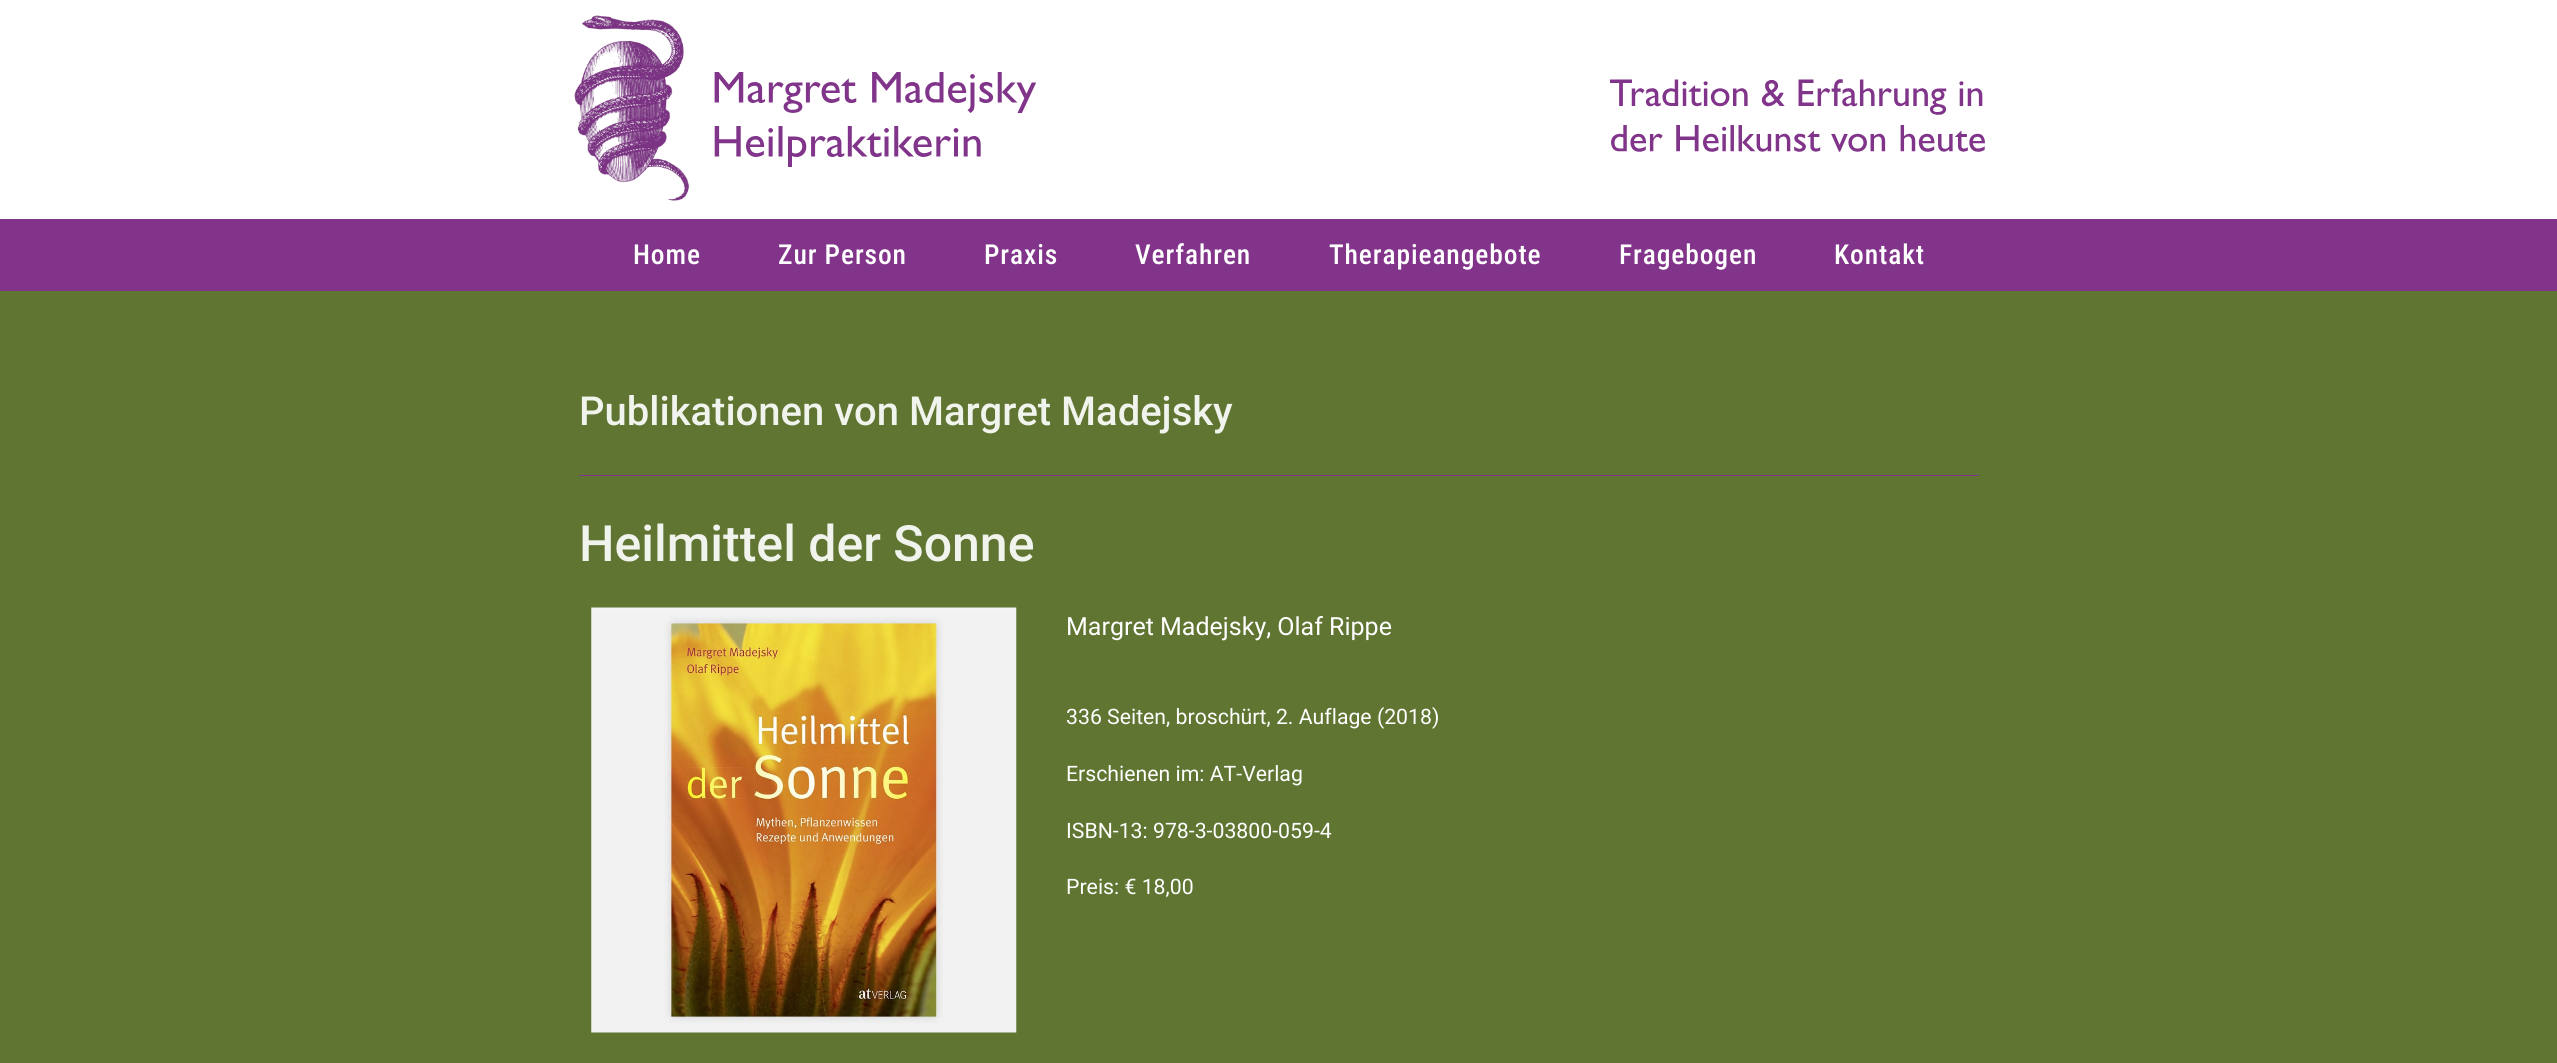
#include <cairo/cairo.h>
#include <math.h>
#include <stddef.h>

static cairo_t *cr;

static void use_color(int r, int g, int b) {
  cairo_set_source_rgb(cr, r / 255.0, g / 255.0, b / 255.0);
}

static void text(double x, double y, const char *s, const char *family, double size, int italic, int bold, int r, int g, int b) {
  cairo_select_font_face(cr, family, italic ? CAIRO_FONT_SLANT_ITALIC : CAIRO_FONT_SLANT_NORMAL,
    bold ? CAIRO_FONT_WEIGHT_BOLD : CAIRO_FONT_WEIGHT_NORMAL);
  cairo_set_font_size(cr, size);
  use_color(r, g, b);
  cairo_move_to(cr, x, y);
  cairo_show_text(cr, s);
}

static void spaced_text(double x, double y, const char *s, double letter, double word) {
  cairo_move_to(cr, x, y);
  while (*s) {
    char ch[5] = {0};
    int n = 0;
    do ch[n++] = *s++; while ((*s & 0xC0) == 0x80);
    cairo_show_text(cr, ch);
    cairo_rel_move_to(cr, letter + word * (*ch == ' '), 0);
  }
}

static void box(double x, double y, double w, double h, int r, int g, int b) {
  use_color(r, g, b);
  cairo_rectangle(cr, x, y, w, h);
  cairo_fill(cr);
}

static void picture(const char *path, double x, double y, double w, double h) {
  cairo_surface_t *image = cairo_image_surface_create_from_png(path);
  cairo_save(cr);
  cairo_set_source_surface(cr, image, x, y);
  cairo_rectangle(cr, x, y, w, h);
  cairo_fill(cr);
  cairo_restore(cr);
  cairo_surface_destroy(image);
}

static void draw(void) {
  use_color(96, 117, 50);
  cairo_paint(cr);
  box(0, 0, 2557, 219, 255, 255, 255);
  picture("img_01.png", 574, 15, 462, 186);
  picture("img_02.png", 1610, 79, 375, 73);
  box(0, 219, 2557, 72, 129, 52, 138);
  box(579, 475, 1400, 1, 129, 52, 138);
  picture("img_03.png", 591, 607, 426, 426);
  cairo_select_font_face(cr, "Roboto Condensed Medium", CAIRO_FONT_SLANT_NORMAL, CAIRO_FONT_WEIGHT_NORMAL);
  cairo_set_font_size(cr, 27.5);
  use_color(255, 255, 255);
  spaced_text(633, 264, "Home", 0.9, 0);
  spaced_text(778, 264, "Zur Person", 0.9, 0);
  spaced_text(984, 264, "Praxis", 0.9, 0);
  spaced_text(1135, 264, "Verfahren", 0.9, 0);
  spaced_text(1329, 264, "Therapieangebote", 0.9, 0);
  spaced_text(1619, 264, "Fragebogen", 0.9, 0);
  spaced_text(1834, 264, "Kontakt", 0.9, 0);
  text(579, 425, "Publikationen von Margret Madejsky", "Roboto Medium", 40, 0, 0, 241, 243, 237);
  text(579, 561, "Heilmittel der Sonne", "Roboto Medium", 50, 0, 0, 241, 243, 237);
  text(1066, 635, "Margret Madejsky, Olaf Rippe", "Roboto", 25, 0, 0, 255, 255, 255);
  text(1066, 724, "336 Seiten, broschürt, 2. Auflage (2018)", "Roboto", 21.25, 0, 0, 255, 255, 255);
  text(1066, 781, "Erschienen im: AT-Verlag", "Roboto", 21.25, 0, 0, 255, 255, 255);
  text(1066, 838, "ISBN-13: 978-3-03800-059-4", "Roboto", 21.25, 0, 0, 255, 255, 255);
  text(1066, 894, "Preis: € 18,00", "Roboto", 21.25, 0, 0, 255, 255, 255);
}

int main(void) {
  cairo_surface_t *surface = cairo_image_surface_create(CAIRO_FORMAT_RGB24, 2557, 1063);
  cr = cairo_create(surface);
  cairo_font_options_t *options = cairo_font_options_create();
  cairo_font_options_set_hint_metrics(options, CAIRO_HINT_METRICS_OFF);
  cairo_font_options_set_hint_style(options, CAIRO_HINT_STYLE_NONE);
  cairo_set_font_options(cr, options);
  cairo_set_miter_limit(cr, 4);
  draw();
  cairo_surface_write_to_png(surface, "out.png");
  cairo_font_options_destroy(options);
  cairo_destroy(cr);
  cairo_surface_destroy(surface);
  return 0;
}
